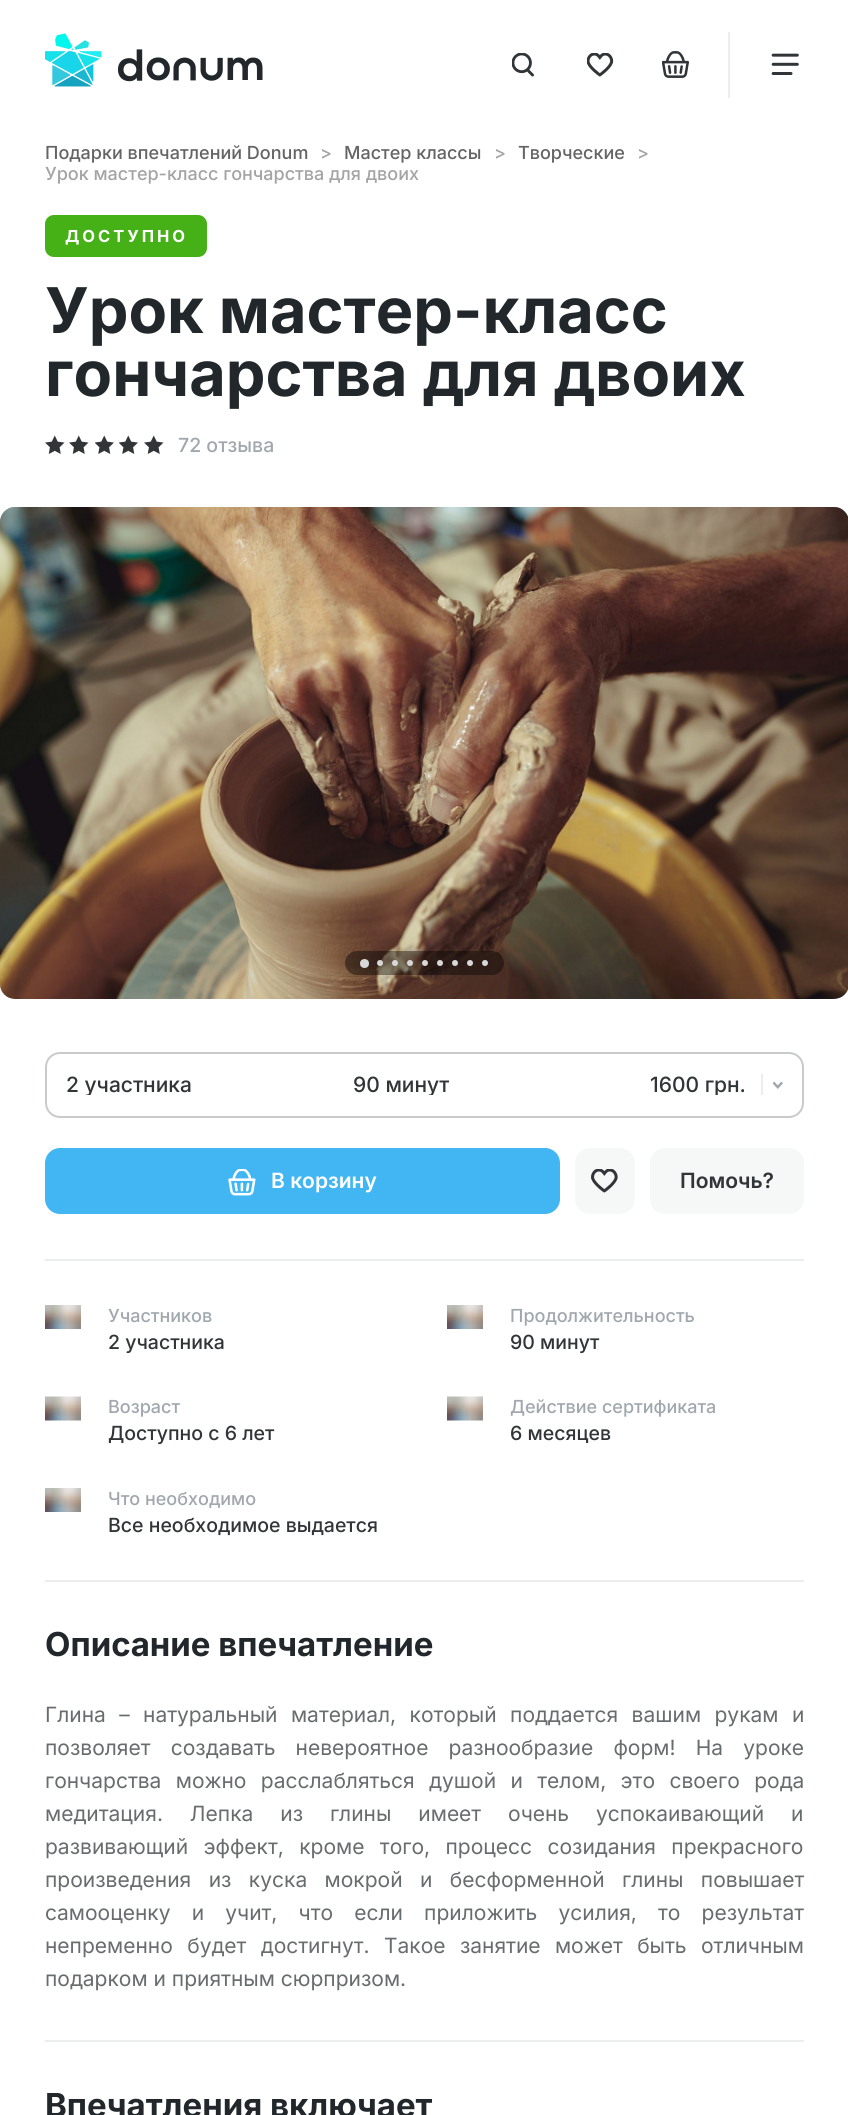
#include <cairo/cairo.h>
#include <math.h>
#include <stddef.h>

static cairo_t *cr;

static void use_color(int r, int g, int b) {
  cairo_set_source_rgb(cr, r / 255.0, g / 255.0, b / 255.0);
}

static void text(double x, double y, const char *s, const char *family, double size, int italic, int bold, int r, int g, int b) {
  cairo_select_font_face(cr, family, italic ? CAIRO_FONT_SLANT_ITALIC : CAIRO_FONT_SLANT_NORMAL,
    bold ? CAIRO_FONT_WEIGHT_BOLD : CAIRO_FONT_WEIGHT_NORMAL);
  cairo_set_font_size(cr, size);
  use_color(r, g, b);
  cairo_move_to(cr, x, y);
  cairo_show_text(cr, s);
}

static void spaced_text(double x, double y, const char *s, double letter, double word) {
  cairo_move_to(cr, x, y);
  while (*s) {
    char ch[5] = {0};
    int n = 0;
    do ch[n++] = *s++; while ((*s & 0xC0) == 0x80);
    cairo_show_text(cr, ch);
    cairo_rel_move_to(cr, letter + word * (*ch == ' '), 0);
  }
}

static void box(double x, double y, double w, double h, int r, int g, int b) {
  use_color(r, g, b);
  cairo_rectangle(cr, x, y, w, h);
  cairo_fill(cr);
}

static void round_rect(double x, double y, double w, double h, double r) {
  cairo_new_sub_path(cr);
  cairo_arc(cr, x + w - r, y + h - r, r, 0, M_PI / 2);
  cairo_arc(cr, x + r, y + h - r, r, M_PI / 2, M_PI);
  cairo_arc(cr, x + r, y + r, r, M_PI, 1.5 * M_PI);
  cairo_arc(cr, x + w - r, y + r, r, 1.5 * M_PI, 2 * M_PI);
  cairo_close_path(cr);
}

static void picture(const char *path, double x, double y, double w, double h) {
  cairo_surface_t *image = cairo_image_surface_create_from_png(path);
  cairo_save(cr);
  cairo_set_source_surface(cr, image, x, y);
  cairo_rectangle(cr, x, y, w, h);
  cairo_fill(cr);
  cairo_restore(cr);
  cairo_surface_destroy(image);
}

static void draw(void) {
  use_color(255, 255, 255);
  cairo_paint(cr);
  picture("img_01.png", 45, 33, 218, 54);
  picture("img_02.png", 512, 53, 22, 24);
  picture("img_03.png", 587, 53, 27, 24);
  picture("img_04.png", 662, 51, 27, 27);
  box(728, 32, 2, 66, 236, 237, 237);
  picture("img_05.png", 771, 53, 28, 22);
  use_color(70, 176, 23);
  round_rect(45, 215, 162, 42, 9);
  cairo_fill(cr);
  picture("img_06.png", 45, 435, 20, 19);
  picture("img_06.png", 69, 435, 20, 19);
  picture("img_07.png", 95, 435, 19, 19);
  picture("img_07.png", 119, 435, 19, 19);
  picture("img_06.png", 144, 435, 20, 19);
  use_color(192, 192, 192);
  round_rect(0, 507, 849, 492, 15);
  cairo_fill(cr);
  picture("img_08.png", 0, 507, 848, 492);
  cairo_set_source_rgba(cr, 0, 0, 0, 0.4);
  round_rect(345, 951, 159, 24, 12);
  cairo_fill(cr);
  use_color(216, 216, 216);
  cairo_arc(cr, 364.5, 963.5, 4.5, 0, 2 * M_PI);
  cairo_fill(cr);
  cairo_arc(cr, 380, 963, 3, 0, 2 * M_PI);
  cairo_fill(cr);
  cairo_arc(cr, 395, 963, 3, 0, 2 * M_PI);
  cairo_fill(cr);
  cairo_arc(cr, 410, 963, 3, 0, 2 * M_PI);
  cairo_fill(cr);
  cairo_arc(cr, 425, 963, 3, 0, 2 * M_PI);
  cairo_fill(cr);
  cairo_arc(cr, 440, 963, 3, 0, 2 * M_PI);
  cairo_fill(cr);
  cairo_arc(cr, 455, 963, 3, 0, 2 * M_PI);
  cairo_fill(cr);
  cairo_arc(cr, 470, 963, 3, 0, 2 * M_PI);
  cairo_fill(cr);
  cairo_arc(cr, 485, 963, 3, 0, 2 * M_PI);
  cairo_fill(cr);
  box(45, 1259, 759, 2, 236, 237, 237);
  round_rect(46, 1053, 757, 64, 14);
  use_color(201, 202, 202);
  cairo_stroke(cr);
  picture("img_09.png", 773, 1082, 10, 7);
  box(761, 1074, 2, 21, 236, 237, 237);
  use_color(66, 182, 243);
  round_rect(45, 1148, 515, 66, 15);
  cairo_fill(cr);
  picture("img_10.png", 228, 1169, 28, 27);
  use_color(246, 247, 247);
  round_rect(575, 1148, 60, 66, 15);
  cairo_fill(cr);
  picture("img_11.png", 591, 1169, 27, 24);
  round_rect(650, 1148, 154, 66, 15);
  cairo_fill(cr);
  picture("img_12.png", 45, 1305, 36, 24);
  picture("img_13.png", 447, 1305, 36, 24);
  picture("img_14.png", 45, 1396, 36, 25);
  picture("img_15.png", 447, 1396, 36, 25);
  picture("img_12.png", 45, 1488, 36, 24);
  box(45, 1580, 759, 2, 236, 237, 237);
  box(45, 2040, 759, 2, 236, 237, 237);
  text(45, 159, "Подарки впечатлений Donum", "Inter Medium", 18, 0, 0, 100, 100, 100);
  text(320, 159, ">", "Inter Medium", 18, 0, 0, 164, 164, 164);
  text(344, 159, "Мастер классы", "Inter Medium", 18, 0, 0, 100, 100, 100);
  text(494, 159, ">", "Inter Medium", 18, 0, 0, 164, 164, 164);
  text(518, 159, "Творческие", "Inter Medium", 18, 0, 0, 100, 100, 100);
  text(637, 159, ">", "Inter Medium", 18, 0, 0, 164, 164, 164);
  text(45, 180, "Урок мастер-класс гончарства для двоих", "Inter Medium", 18, 0, 0, 164, 164, 164);
  cairo_select_font_face(cr, "Inter", CAIRO_FONT_SLANT_NORMAL, CAIRO_FONT_WEIGHT_BOLD);
  cairo_set_font_size(cr, 16.5);
  use_color(255, 255, 255);
  spaced_text(65, 242, "ДОСТУПНО", 3, 0);
  text(45, 333, "Урок мастер-класс", "Inter", 63, 0, 1, 33, 39, 43);
  text(45, 396, "гончарства для двоих", "Inter", 63, 0, 1, 33, 39, 43);
  text(178, 452, "72 отзыва", "Inter Medium", 19.5, 0, 0, 160, 168, 174);
  cairo_save(cr);
  cairo_rectangle(cr, 66, 1074, 287, 21);
  cairo_clip(cr);
  text(66, 1092, "2 участника", "Inter Medium", 21, 0, 0, 49, 53, 56);
  cairo_restore(cr);
  cairo_save(cr);
  cairo_rectangle(cr, 353, 1074, 216, 21);
  cairo_clip(cr);
  text(353, 1092, "90 минут", "Inter Medium", 21, 0, 0, 49, 53, 56);
  cairo_restore(cr);
  cairo_save(cr);
  cairo_rectangle(cr, 569, 1074, 214, 21);
  cairo_clip(cr);
  text(650, 1092, "1600 грн.", "Inter Medium", 21, 0, 0, 49, 53, 56);
  cairo_restore(cr);
  text(271, 1188, "В корзину", "Inter SemiBold", 21, 0, 0, 255, 255, 255);
  text(680, 1188, "Помочь?", "Inter SemiBold", 21, 0, 0, 49, 53, 56);
  text(108, 1322, "Участников", "Inter Medium", 18, 0, 0, 160, 168, 174);
  text(108, 1349, "2 участника", "Inter Medium", 19.5, 0, 0, 49, 53, 56);
  text(510, 1322, "Продолжительность", "Inter Medium", 18, 0, 0, 160, 168, 174);
  text(510, 1349, "90 минут", "Inter Medium", 19.5, 0, 0, 49, 53, 56);
  text(108, 1413, "Возраст", "Inter Medium", 18, 0, 0, 160, 168, 174);
  text(108, 1440, "Доступно с 6 лет", "Inter Medium", 19.5, 0, 0, 49, 53, 56);
  text(510, 1413, "Действие сертификата", "Inter Medium", 18, 0, 0, 160, 168, 174);
  text(510, 1440, "6 месяцев", "Inter Medium", 19.5, 0, 0, 49, 53, 56);
  text(108, 1505, "Что необходимо", "Inter Medium", 18, 0, 0, 160, 168, 174);
  text(108, 1532, "Все необходимое выдается", "Inter Medium", 19.5, 0, 0, 49, 53, 56);
  text(45, 1656, "Описание впечатление", "Inter", 33, 0, 1, 33, 39, 43);
  cairo_select_font_face(cr, "Inter", CAIRO_FONT_SLANT_NORMAL, CAIRO_FONT_WEIGHT_NORMAL);
  cairo_set_font_size(cr, 21);
  use_color(105, 108, 110);
  spaced_text(45, 1722, "Глина – натуральный материал, который поддается вашим рукам и", 0, 7.5);
  spaced_text(45, 1755, "позволяет создавать невероятное разнообразие форм! На уроке", 0, 14.25);
  spaced_text(45, 1788, "гончарства можно расслабляться душой и телом, это своего рода", 0, 8.5);
  spaced_text(45, 1821, "медитация. Лепка из глины имеет очень успокаивающий и", 0, 21);
  spaced_text(45, 1854, "развивающий эффект, кроме того, процесс созидания прекрасного", 0, 9.5);
  spaced_text(45, 1887, "произведения из куска мокрой и бесформенной глины повышает", 0, 11.5);
  spaced_text(45, 1920, "самооценку и учит, что если приложить усилия, то результат", 0, 15.25);
  spaced_text(45, 1953, "непременно будет достигнут. Такое занятие может быть отличным", 0, 8.5);
  text(45, 1986, "подарком и приятным сюрпризом.", "Inter", 21, 0, 0, 105, 108, 110);
  text(45, 2117, "Впечатления включает", "Inter", 33, 0, 1, 33, 39, 43);
}

int main(void) {
  cairo_surface_t *surface = cairo_image_surface_create(CAIRO_FORMAT_RGB24, 848, 2115);
  cr = cairo_create(surface);
  cairo_font_options_t *options = cairo_font_options_create();
  cairo_font_options_set_hint_metrics(options, CAIRO_HINT_METRICS_OFF);
  cairo_font_options_set_hint_style(options, CAIRO_HINT_STYLE_NONE);
  cairo_set_font_options(cr, options);
  cairo_set_miter_limit(cr, 4);
  draw();
  cairo_surface_write_to_png(surface, "out.png");
  cairo_font_options_destroy(options);
  cairo_destroy(cr);
  cairo_surface_destroy(surface);
  return 0;
}
